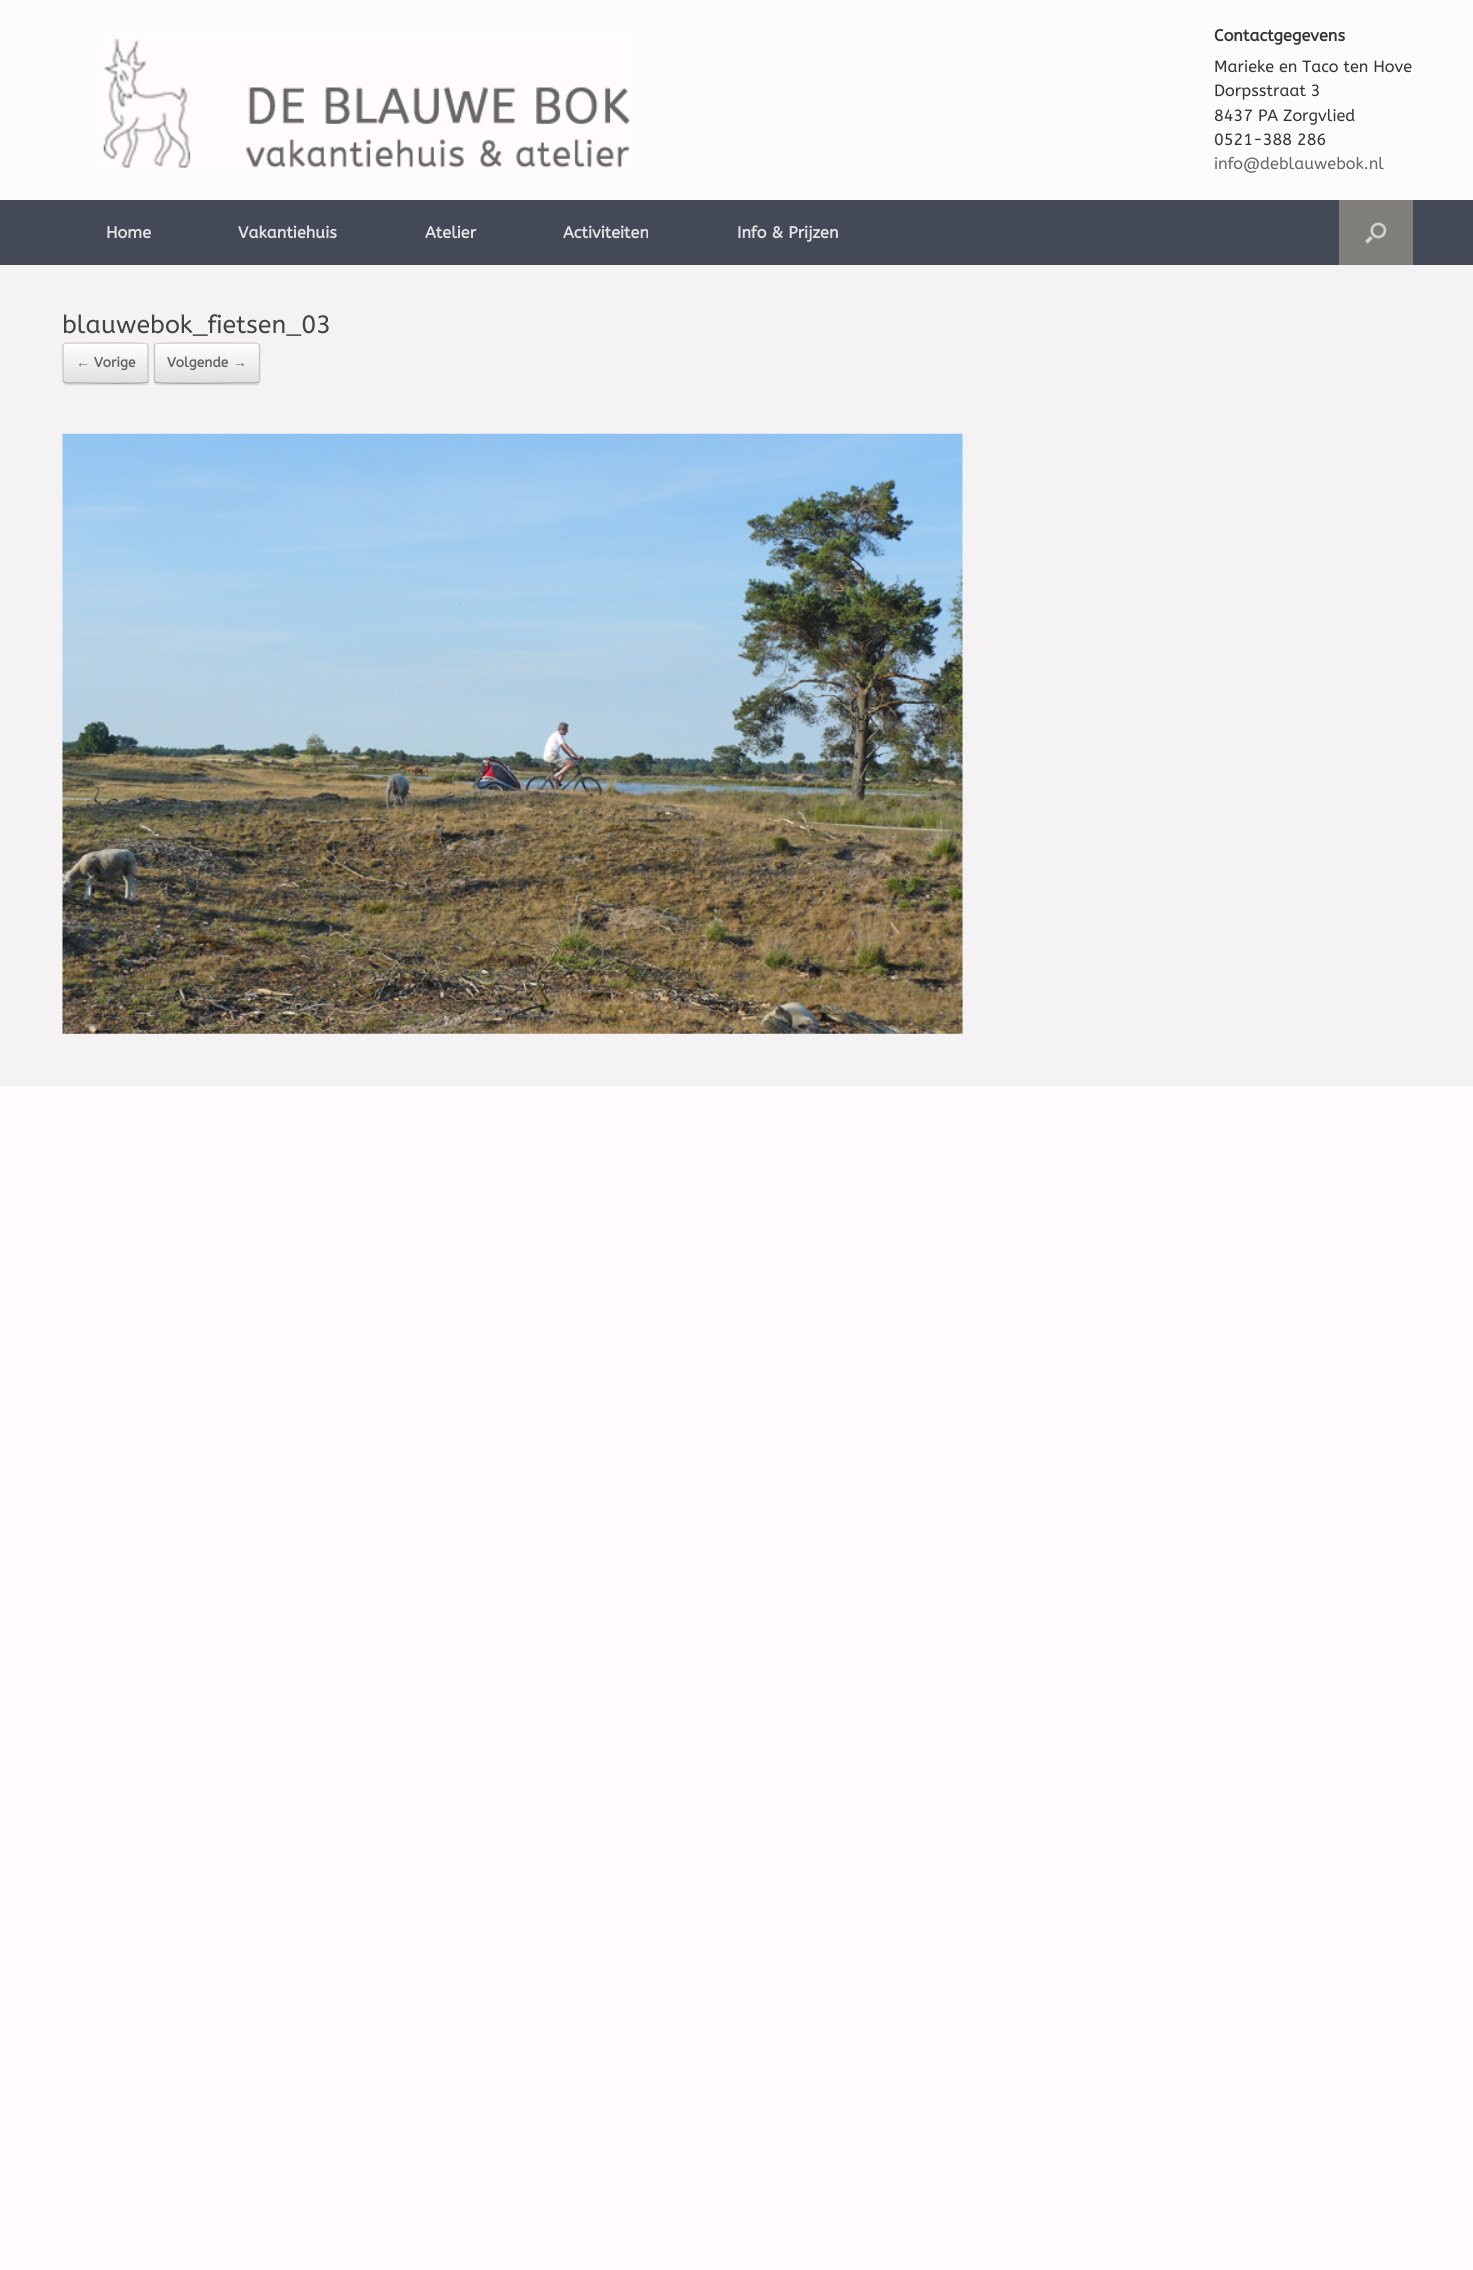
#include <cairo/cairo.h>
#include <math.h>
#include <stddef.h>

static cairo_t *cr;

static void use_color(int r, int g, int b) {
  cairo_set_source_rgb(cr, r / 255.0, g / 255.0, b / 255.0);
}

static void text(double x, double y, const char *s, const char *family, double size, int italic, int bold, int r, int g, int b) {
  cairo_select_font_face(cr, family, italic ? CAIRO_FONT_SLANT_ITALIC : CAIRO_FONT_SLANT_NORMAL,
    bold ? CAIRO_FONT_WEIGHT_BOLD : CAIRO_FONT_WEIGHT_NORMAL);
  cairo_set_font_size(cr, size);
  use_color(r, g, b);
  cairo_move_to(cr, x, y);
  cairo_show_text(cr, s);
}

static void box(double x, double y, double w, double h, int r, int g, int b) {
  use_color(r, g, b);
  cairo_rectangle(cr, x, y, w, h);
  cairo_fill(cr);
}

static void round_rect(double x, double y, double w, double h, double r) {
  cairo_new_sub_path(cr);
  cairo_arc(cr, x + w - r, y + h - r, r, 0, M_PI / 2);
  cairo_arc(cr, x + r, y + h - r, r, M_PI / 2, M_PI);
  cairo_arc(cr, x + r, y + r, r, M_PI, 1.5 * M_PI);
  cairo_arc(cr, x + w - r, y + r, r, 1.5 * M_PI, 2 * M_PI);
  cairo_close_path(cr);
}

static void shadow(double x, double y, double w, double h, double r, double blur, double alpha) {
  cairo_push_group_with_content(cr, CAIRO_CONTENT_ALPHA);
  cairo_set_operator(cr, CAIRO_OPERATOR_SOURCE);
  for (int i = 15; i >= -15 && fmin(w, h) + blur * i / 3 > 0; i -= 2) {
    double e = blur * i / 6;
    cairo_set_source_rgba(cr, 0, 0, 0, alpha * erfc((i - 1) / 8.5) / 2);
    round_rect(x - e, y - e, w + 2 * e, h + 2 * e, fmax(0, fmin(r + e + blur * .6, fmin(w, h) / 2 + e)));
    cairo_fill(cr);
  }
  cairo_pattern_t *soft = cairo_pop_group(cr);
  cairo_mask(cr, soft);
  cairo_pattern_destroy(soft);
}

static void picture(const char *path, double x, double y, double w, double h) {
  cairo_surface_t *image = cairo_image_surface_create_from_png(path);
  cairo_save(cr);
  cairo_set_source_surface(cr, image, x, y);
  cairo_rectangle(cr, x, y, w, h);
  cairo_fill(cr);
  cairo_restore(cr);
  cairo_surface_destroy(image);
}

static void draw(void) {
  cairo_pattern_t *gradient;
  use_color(255, 252, 251);
  cairo_paint(cr);
  box(0, 0, 1473, 200, 252, 252, 252);
  picture("img_01.png", 103, 38, 528, 130);
  box(0, 200, 1473, 65, 68, 73, 88);
  box(1339, 200, 74, 65, 127, 126, 120);
  picture("img_02.png", 1365, 222, 22, 22);
  box(0, 265, 1473, 821, 244, 242, 242);
  use_color(0, 0, 0);
  shadow(63, 344, 86, 41, 4, 0.5, 0.12);
  cairo_save(cr);
  round_rect(63, 343, 86, 41, 4);
  cairo_clip(cr);
  gradient = cairo_pattern_create_linear(64, 344, 64, 305);
  cairo_pattern_add_color_stop_rgba(gradient, 0, 0.875, 0.875, 0.875, 1);
  cairo_pattern_add_color_stop_rgba(gradient, 1, 1, 1, 1, 1);
  cairo_set_source(cr, gradient);
  cairo_pattern_destroy(gradient);
  cairo_rectangle(cr, 63, 343, 86, 1);
  cairo_fill(cr);
  gradient = cairo_pattern_create_linear(64, 383, 64, 344);
  cairo_pattern_add_color_stop_rgba(gradient, 0, 0.875, 0.875, 0.875, 1);
  cairo_pattern_add_color_stop_rgba(gradient, 1, 1, 1, 1, 1);
  cairo_set_source(cr, gradient);
  cairo_pattern_destroy(gradient);
  cairo_rectangle(cr, 63, 344, 86, 39);
  cairo_fill(cr);
  gradient = cairo_pattern_create_linear(64, 421, 64, 383);
  cairo_pattern_add_color_stop_rgba(gradient, 0, 0.875, 0.875, 0.875, 1);
  cairo_pattern_add_color_stop_rgba(gradient, 1, 1, 1, 1, 1);
  cairo_set_source(cr, gradient);
  cairo_pattern_destroy(gradient);
  cairo_rectangle(cr, 63, 383, 86, 1);
  cairo_fill(cr);
  cairo_restore(cr);
  cairo_new_path(cr);
  cairo_move_to(cr, 64, 344);
  cairo_line_to(cr, 66, 343);
  cairo_line_to(cr, 79.5, 343);
  cairo_curve_to(cr, 87, 343, 145, 342, 147, 344);
  use_color(210, 210, 210);
  cairo_set_line_width(cr, 1.2);
  cairo_stroke(cr);
  cairo_new_path(cr);
  cairo_move_to(cr, 147, 344);
  cairo_curve_to(cr, 148, 344.5, 148, 345.5, 148, 346);
  cairo_line_to(cr, 148, 380);
  cairo_curve_to(cr, 148, 381, 148, 381.5, 147, 382);
  use_color(195, 195, 195);
  cairo_stroke(cr);
  cairo_new_path(cr);
  cairo_move_to(cr, 147, 382);
  cairo_line_to(cr, 147, 382.5);
  cairo_curve_to(cr, 145, 384, 87, 383, 79.5, 383);
  cairo_line_to(cr, 66, 383);
  cairo_line_to(cr, 64, 382);
  use_color(159, 159, 159);
  cairo_stroke(cr);
  cairo_new_path(cr);
  cairo_move_to(cr, 64, 382);
  cairo_curve_to(cr, 63.5, 381.5, 63, 381, 63, 380);
  cairo_line_to(cr, 63, 346);
  cairo_curve_to(cr, 63, 345.5, 63.5, 344.5, 64, 344);
  use_color(195, 195, 195);
  cairo_stroke(cr);
  use_color(0, 0, 0);
  shadow(154, 344, 106, 41, 4, 0.5, 0.12);
  cairo_save(cr);
  round_rect(154, 343, 106, 41, 4);
  cairo_clip(cr);
  gradient = cairo_pattern_create_linear(155, 344, 155, 305);
  cairo_pattern_add_color_stop_rgba(gradient, 0, 0.875, 0.875, 0.875, 1);
  cairo_pattern_add_color_stop_rgba(gradient, 1, 1, 1, 1, 1);
  cairo_set_source(cr, gradient);
  cairo_pattern_destroy(gradient);
  cairo_rectangle(cr, 154, 343, 106, 1);
  cairo_fill(cr);
  gradient = cairo_pattern_create_linear(155, 383, 155, 344);
  cairo_pattern_add_color_stop_rgba(gradient, 0, 0.875, 0.875, 0.875, 1);
  cairo_pattern_add_color_stop_rgba(gradient, 1, 1, 1, 1, 1);
  cairo_set_source(cr, gradient);
  cairo_pattern_destroy(gradient);
  cairo_rectangle(cr, 154, 344, 106, 39);
  cairo_fill(cr);
  gradient = cairo_pattern_create_linear(155, 421, 155, 383);
  cairo_pattern_add_color_stop_rgba(gradient, 0, 0.875, 0.875, 0.875, 1);
  cairo_pattern_add_color_stop_rgba(gradient, 1, 1, 1, 1, 1);
  cairo_set_source(cr, gradient);
  cairo_pattern_destroy(gradient);
  cairo_rectangle(cr, 154, 383, 106, 1);
  cairo_fill(cr);
  cairo_restore(cr);
  cairo_new_path(cr);
  cairo_move_to(cr, 155.5, 344);
  cairo_curve_to(cr, 157.5, 342, 231, 343, 240, 343);
  cairo_line_to(cr, 256, 343);
  cairo_line_to(cr, 258.5, 344);
  use_color(210, 210, 210);
  cairo_stroke(cr);
  cairo_new_path(cr);
  cairo_move_to(cr, 258.5, 344);
  cairo_curve_to(cr, 259, 344.5, 259.5, 345.5, 259.5, 346);
  cairo_line_to(cr, 259.5, 380);
  cairo_curve_to(cr, 259.5, 381, 259, 381.5, 258.5, 382);
  use_color(195, 195, 195);
  cairo_stroke(cr);
  cairo_new_path(cr);
  cairo_move_to(cr, 258.5, 382);
  cairo_line_to(cr, 256, 383);
  cairo_line_to(cr, 240, 383);
  cairo_curve_to(cr, 231, 383, 157.5, 384, 155.5, 382.5);
  cairo_line_to(cr, 155.5, 382);
  use_color(159, 159, 159);
  cairo_stroke(cr);
  cairo_new_path(cr);
  cairo_move_to(cr, 155.5, 382);
  cairo_curve_to(cr, 154.5, 381.5, 154.5, 381, 154.5, 380);
  cairo_line_to(cr, 154.5, 346);
  cairo_curve_to(cr, 154.5, 345.5, 154.5, 344.5, 155.5, 344);
  use_color(195, 195, 195);
  cairo_stroke(cr);
  picture("img_03.png", 62, 433, 901, 601);
  text(1214, 41, "Contactgegevens", "ABeeZee", 16.25, 0, 1, 51, 51, 51);
  text(1214, 72, "Marieke en Taco ten Hove", "ABeeZee", 16.25, 0, 0, 51, 51, 51);
  text(1214, 96, "Dorpsstraat 3", "ABeeZee", 16.25, 0, 0, 51, 51, 51);
  text(1214, 121, "8437 PA Zorgvlied", "ABeeZee", 16.25, 0, 0, 51, 51, 51);
  text(1214, 145, "0521-388 286", "ABeeZee", 16.25, 0, 0, 51, 51, 51);
  text(1214, 169, "info@deblauwebok.nl", "ABeeZee", 16.25, 0, 0, 102, 102, 102);
  text(106, 238, "Home", "ABeeZee", 16.25, 0, 1, 226, 226, 226);
  text(238, 238, "Vakantiehuis", "ABeeZee", 16.25, 0, 1, 226, 226, 226);
  text(425, 238, "Atelier", "ABeeZee", 16.25, 0, 1, 226, 226, 226);
  text(563, 238, "Activiteiten", "ABeeZee", 16.25, 0, 1, 226, 226, 226);
  text(737, 238, "Info & Prijzen", "ABeeZee", 16.25, 0, 1, 226, 226, 226);
  text(62, 333, "blauwebok_fietsen_03", "ABeeZee", 25, 0, 0, 68, 68, 68);
  text(76, 367, "←", "Liberation Serif", 13.75, 0, 1, 102, 102, 102);
  text(94, 367, "Vorige", "ABeeZee", 13.75, 0, 1, 102, 102, 102);
  text(167, 367, "Volgende", "ABeeZee", 13.75, 0, 1, 102, 102, 102);
  text(233, 367, "→", "Liberation Serif", 13.75, 0, 1, 102, 102, 102);
}

int main(void) {
  cairo_surface_t *surface = cairo_image_surface_create(CAIRO_FORMAT_RGB24, 1473, 2270);
  cr = cairo_create(surface);
  cairo_font_options_t *options = cairo_font_options_create();
  cairo_font_options_set_hint_metrics(options, CAIRO_HINT_METRICS_OFF);
  cairo_font_options_set_hint_style(options, CAIRO_HINT_STYLE_NONE);
  cairo_set_font_options(cr, options);
  cairo_set_miter_limit(cr, 4);
  draw();
  cairo_surface_write_to_png(surface, "out.png");
  cairo_font_options_destroy(options);
  cairo_destroy(cr);
  cairo_surface_destroy(surface);
  return 0;
}
